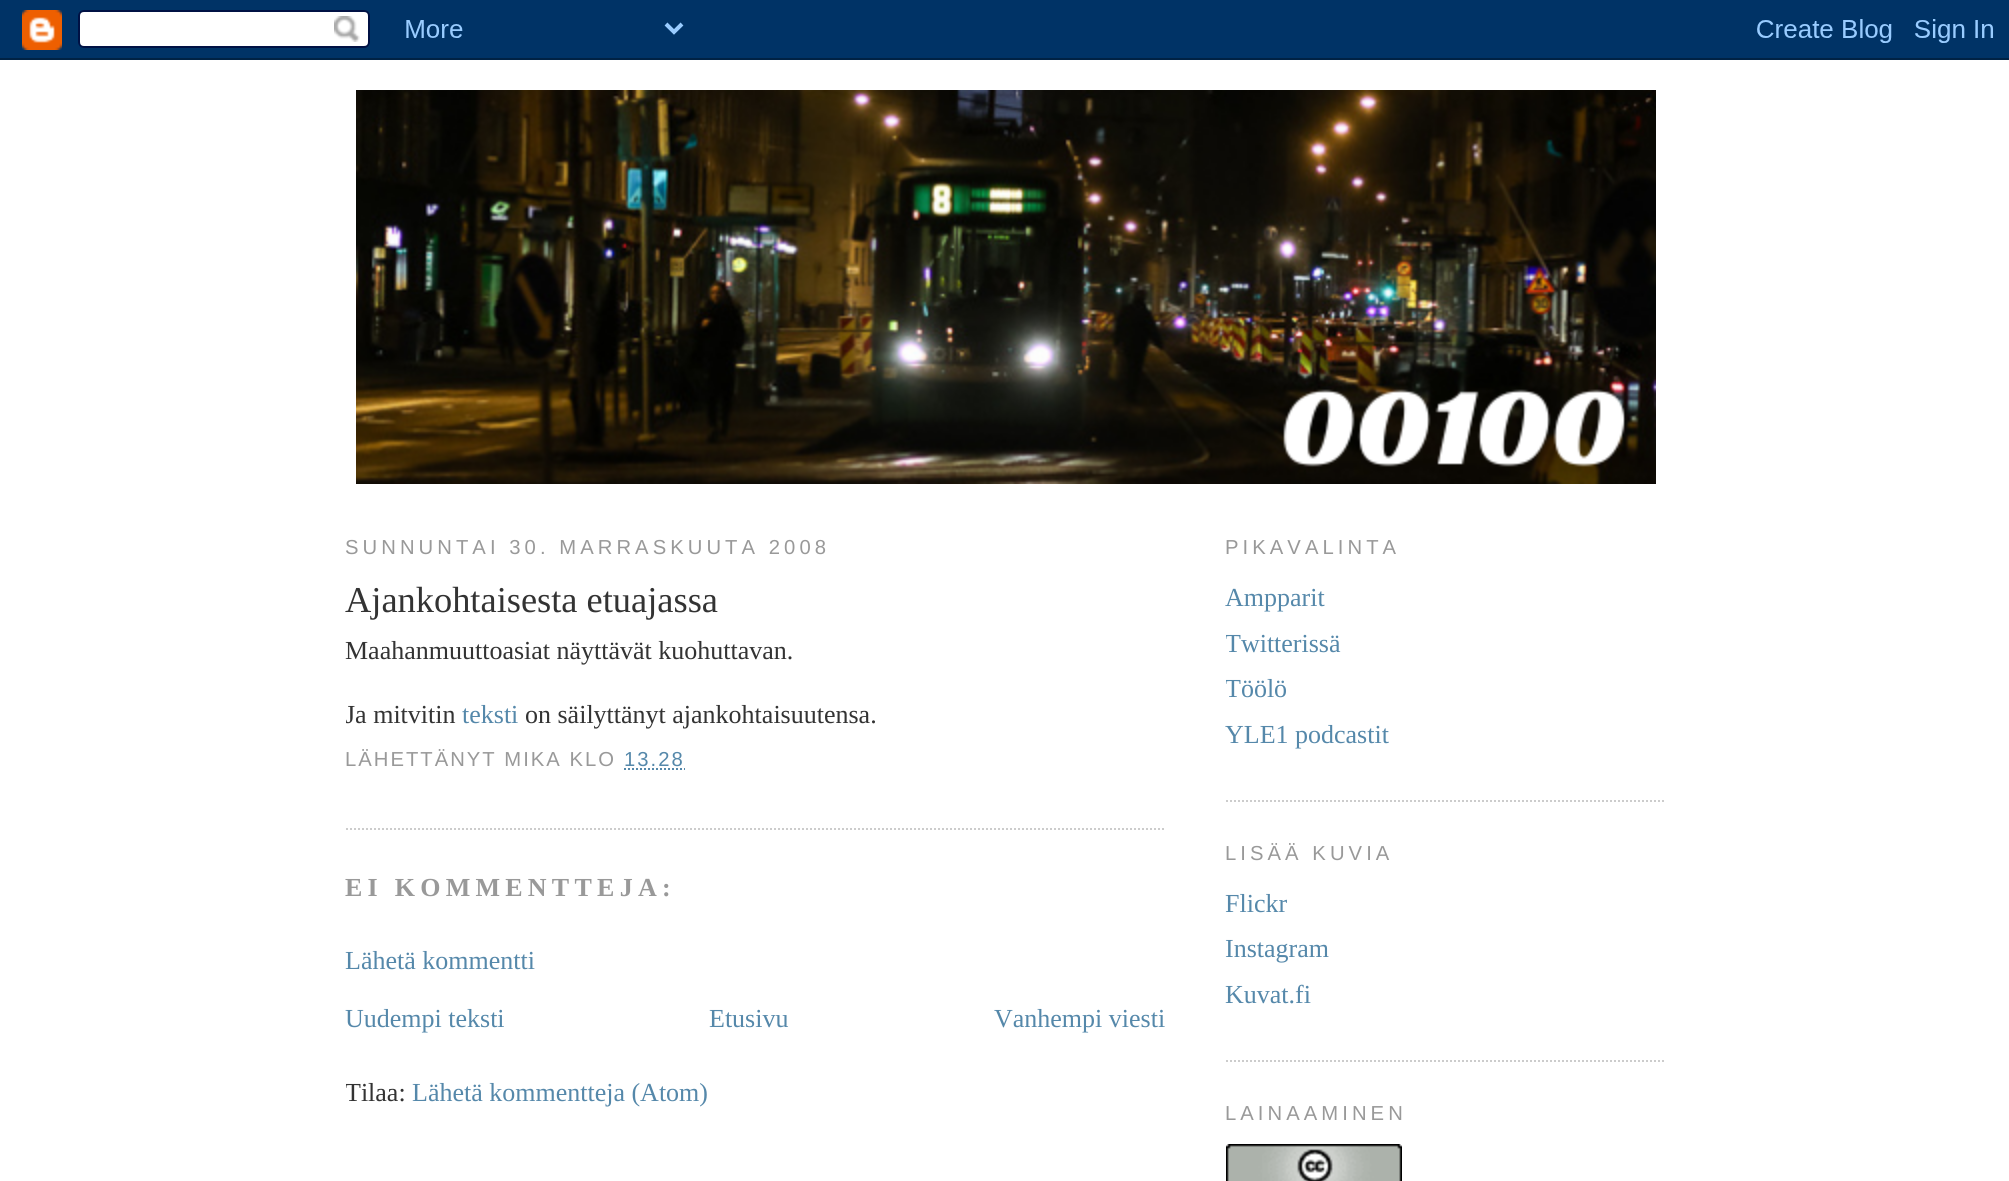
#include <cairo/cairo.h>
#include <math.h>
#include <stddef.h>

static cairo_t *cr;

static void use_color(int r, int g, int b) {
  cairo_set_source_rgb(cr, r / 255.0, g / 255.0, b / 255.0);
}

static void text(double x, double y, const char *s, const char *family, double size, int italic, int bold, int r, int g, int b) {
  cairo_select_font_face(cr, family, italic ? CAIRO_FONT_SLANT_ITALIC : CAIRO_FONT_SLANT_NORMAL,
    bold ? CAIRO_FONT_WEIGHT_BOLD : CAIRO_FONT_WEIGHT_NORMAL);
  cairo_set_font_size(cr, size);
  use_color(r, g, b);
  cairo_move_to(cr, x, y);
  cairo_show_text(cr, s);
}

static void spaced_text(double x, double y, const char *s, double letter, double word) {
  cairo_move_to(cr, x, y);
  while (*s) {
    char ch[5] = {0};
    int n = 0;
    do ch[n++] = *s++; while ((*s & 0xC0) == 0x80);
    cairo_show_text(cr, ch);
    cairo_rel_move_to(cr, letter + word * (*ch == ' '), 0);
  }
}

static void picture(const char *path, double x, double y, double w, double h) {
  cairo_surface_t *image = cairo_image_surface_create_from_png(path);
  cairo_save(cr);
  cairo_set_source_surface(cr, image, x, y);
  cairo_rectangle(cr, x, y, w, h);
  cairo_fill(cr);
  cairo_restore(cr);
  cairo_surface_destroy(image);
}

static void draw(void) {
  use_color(255, 255, 255);
  cairo_paint(cr);
  picture("img_01.png", 0, 0, 2009, 60);
  picture("img_02.png", 356, 90, 1300, 394);
  cairo_new_path(cr);
  cairo_move_to(cr, 346, 829);
  cairo_line_to(cr, 1166, 829);
  use_color(204, 204, 204);
  cairo_set_dash(cr, (double[]){2, 2}, 2, 0);
  cairo_stroke(cr);
  cairo_new_path(cr);
  cairo_move_to(cr, 624, 769);
  cairo_line_to(cr, 685, 769);
  use_color(85, 136, 170);
  cairo_stroke(cr);
  cairo_new_path(cr);
  cairo_move_to(cr, 1226, 801);
  cairo_line_to(cr, 1666, 801);
  use_color(204, 204, 204);
  cairo_stroke(cr);
  cairo_new_path(cr);
  cairo_move_to(cr, 1226, 1061);
  cairo_line_to(cr, 1666, 1061);
  cairo_stroke(cr);
  picture("img_03.png", 1226, 1144, 176, 37);
  cairo_select_font_face(cr, "Liberation Sans", CAIRO_FONT_SLANT_NORMAL, CAIRO_FONT_WEIGHT_NORMAL);
  cairo_set_font_size(cr, 20.25);
  use_color(153, 153, 153);
  spaced_text(345, 554, "SUNNUNTAI 30. MARRASKUUTA 2008", 4.05, 0);
  text(345, 612, "Ajankohtaisesta etuajassa", "Liberation Serif", 36.4, 0, 0, 51, 51, 51);
  text(345, 659, "Maahanmuuttoasiat näyttävät kuohuttavan.", "Liberation Serif", 26, 0, 0, 51, 51, 51);
  cairo_save(cr);
  cairo_rectangle(cr, 346, 504, 820, 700);
  cairo_clip(cr);
  text(345, 723, "Ja mitvitin", "Liberation Serif", 26, 0, 0, 51, 51, 51);
  cairo_restore(cr);
  text(462, 723, "teksti", "Liberation Serif", 26, 0, 0, 85, 136, 170);
  text(525, 723, "on säilyttänyt ajankohtaisuutensa.", "Liberation Serif", 26, 0, 0, 51, 51, 51);
  cairo_select_font_face(cr, "Liberation Sans", CAIRO_FONT_SLANT_NORMAL, CAIRO_FONT_WEIGHT_NORMAL);
  cairo_set_font_size(cr, 20.25);
  use_color(153, 153, 153);
  spaced_text(345, 766, "LÄHETTÄNYT MIKA KLO", 2, 0);
  use_color(85, 136, 170);
  spaced_text(624, 766, "13.28", 2, 0);
  cairo_select_font_face(cr, "Liberation Serif", CAIRO_FONT_SLANT_NORMAL, CAIRO_FONT_WEIGHT_BOLD);
  cairo_set_font_size(cr, 26);
  use_color(153, 153, 153);
  spaced_text(345, 896, "EI KOMMENTTEJA:", 5.25, 0);
  text(345, 969, "Lähetä kommentti", "Liberation Serif", 26, 0, 0, 85, 136, 170);
  text(345, 1027, "Uudempi teksti", "Liberation Serif", 26, 0, 0, 85, 136, 170);
  text(709, 1027, "Etusivu", "Liberation Serif", 26, 0, 0, 85, 136, 170);
  text(994, 1027, "Vanhempi viesti", "Liberation Serif", 26, 0, 0, 85, 136, 170);
  cairo_save(cr);
  cairo_rectangle(cr, 346, 504, 820, 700);
  cairo_clip(cr);
  text(345, 1101, "Tilaa:", "Liberation Serif", 26, 0, 0, 51, 51, 51);
  cairo_restore(cr);
  text(412, 1101, "Lähetä kommentteja (Atom)", "Liberation Serif", 26, 0, 0, 85, 136, 170);
  cairo_select_font_face(cr, "Liberation Sans", CAIRO_FONT_SLANT_NORMAL, CAIRO_FONT_WEIGHT_NORMAL);
  cairo_set_font_size(cr, 20.25);
  use_color(153, 153, 153);
  spaced_text(1225, 554, "PIKAVALINTA", 4.05, 0);
  text(1225, 606, "Ampparit", "Liberation Serif", 26, 0, 0, 85, 136, 170);
  cairo_save(cr);
  cairo_rectangle(cr, 1226, 504, 440, 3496);
  cairo_clip(cr);
  text(1225, 652, "Twitterissä", "Liberation Serif", 26, 0, 0, 85, 136, 170);
  text(1225, 697, "Töölö", "Liberation Serif", 26, 0, 0, 85, 136, 170);
  cairo_restore(cr);
  text(1225, 743, "YLE1 podcastit", "Liberation Serif", 26, 0, 0, 85, 136, 170);
  cairo_select_font_face(cr, "Liberation Sans", CAIRO_FONT_SLANT_NORMAL, CAIRO_FONT_WEIGHT_NORMAL);
  cairo_set_font_size(cr, 20.25);
  use_color(153, 153, 153);
  spaced_text(1225, 860, "LISÄÄ KUVIA", 4.05, 0);
  text(1225, 912, "Flickr", "Liberation Serif", 26, 0, 0, 85, 136, 170);
  text(1225, 957, "Instagram", "Liberation Serif", 26, 0, 0, 85, 136, 170);
  text(1225, 1003, "Kuvat.fi", "Liberation Serif", 26, 0, 0, 85, 136, 170);
  cairo_select_font_face(cr, "Liberation Sans", CAIRO_FONT_SLANT_NORMAL, CAIRO_FONT_WEIGHT_NORMAL);
  cairo_set_font_size(cr, 20.25);
  use_color(153, 153, 153);
  spaced_text(1225, 1120, "LAINAAMINEN", 4.05, 0);
}

int main(void) {
  cairo_surface_t *surface = cairo_image_surface_create(CAIRO_FORMAT_RGB24, 2009, 1181);
  cr = cairo_create(surface);
  cairo_font_options_t *options = cairo_font_options_create();
  cairo_font_options_set_hint_metrics(options, CAIRO_HINT_METRICS_OFF);
  cairo_font_options_set_hint_style(options, CAIRO_HINT_STYLE_NONE);
  cairo_set_font_options(cr, options);
  cairo_set_miter_limit(cr, 4);
  draw();
  cairo_surface_write_to_png(surface, "out.png");
  cairo_font_options_destroy(options);
  cairo_destroy(cr);
  cairo_surface_destroy(surface);
  return 0;
}
